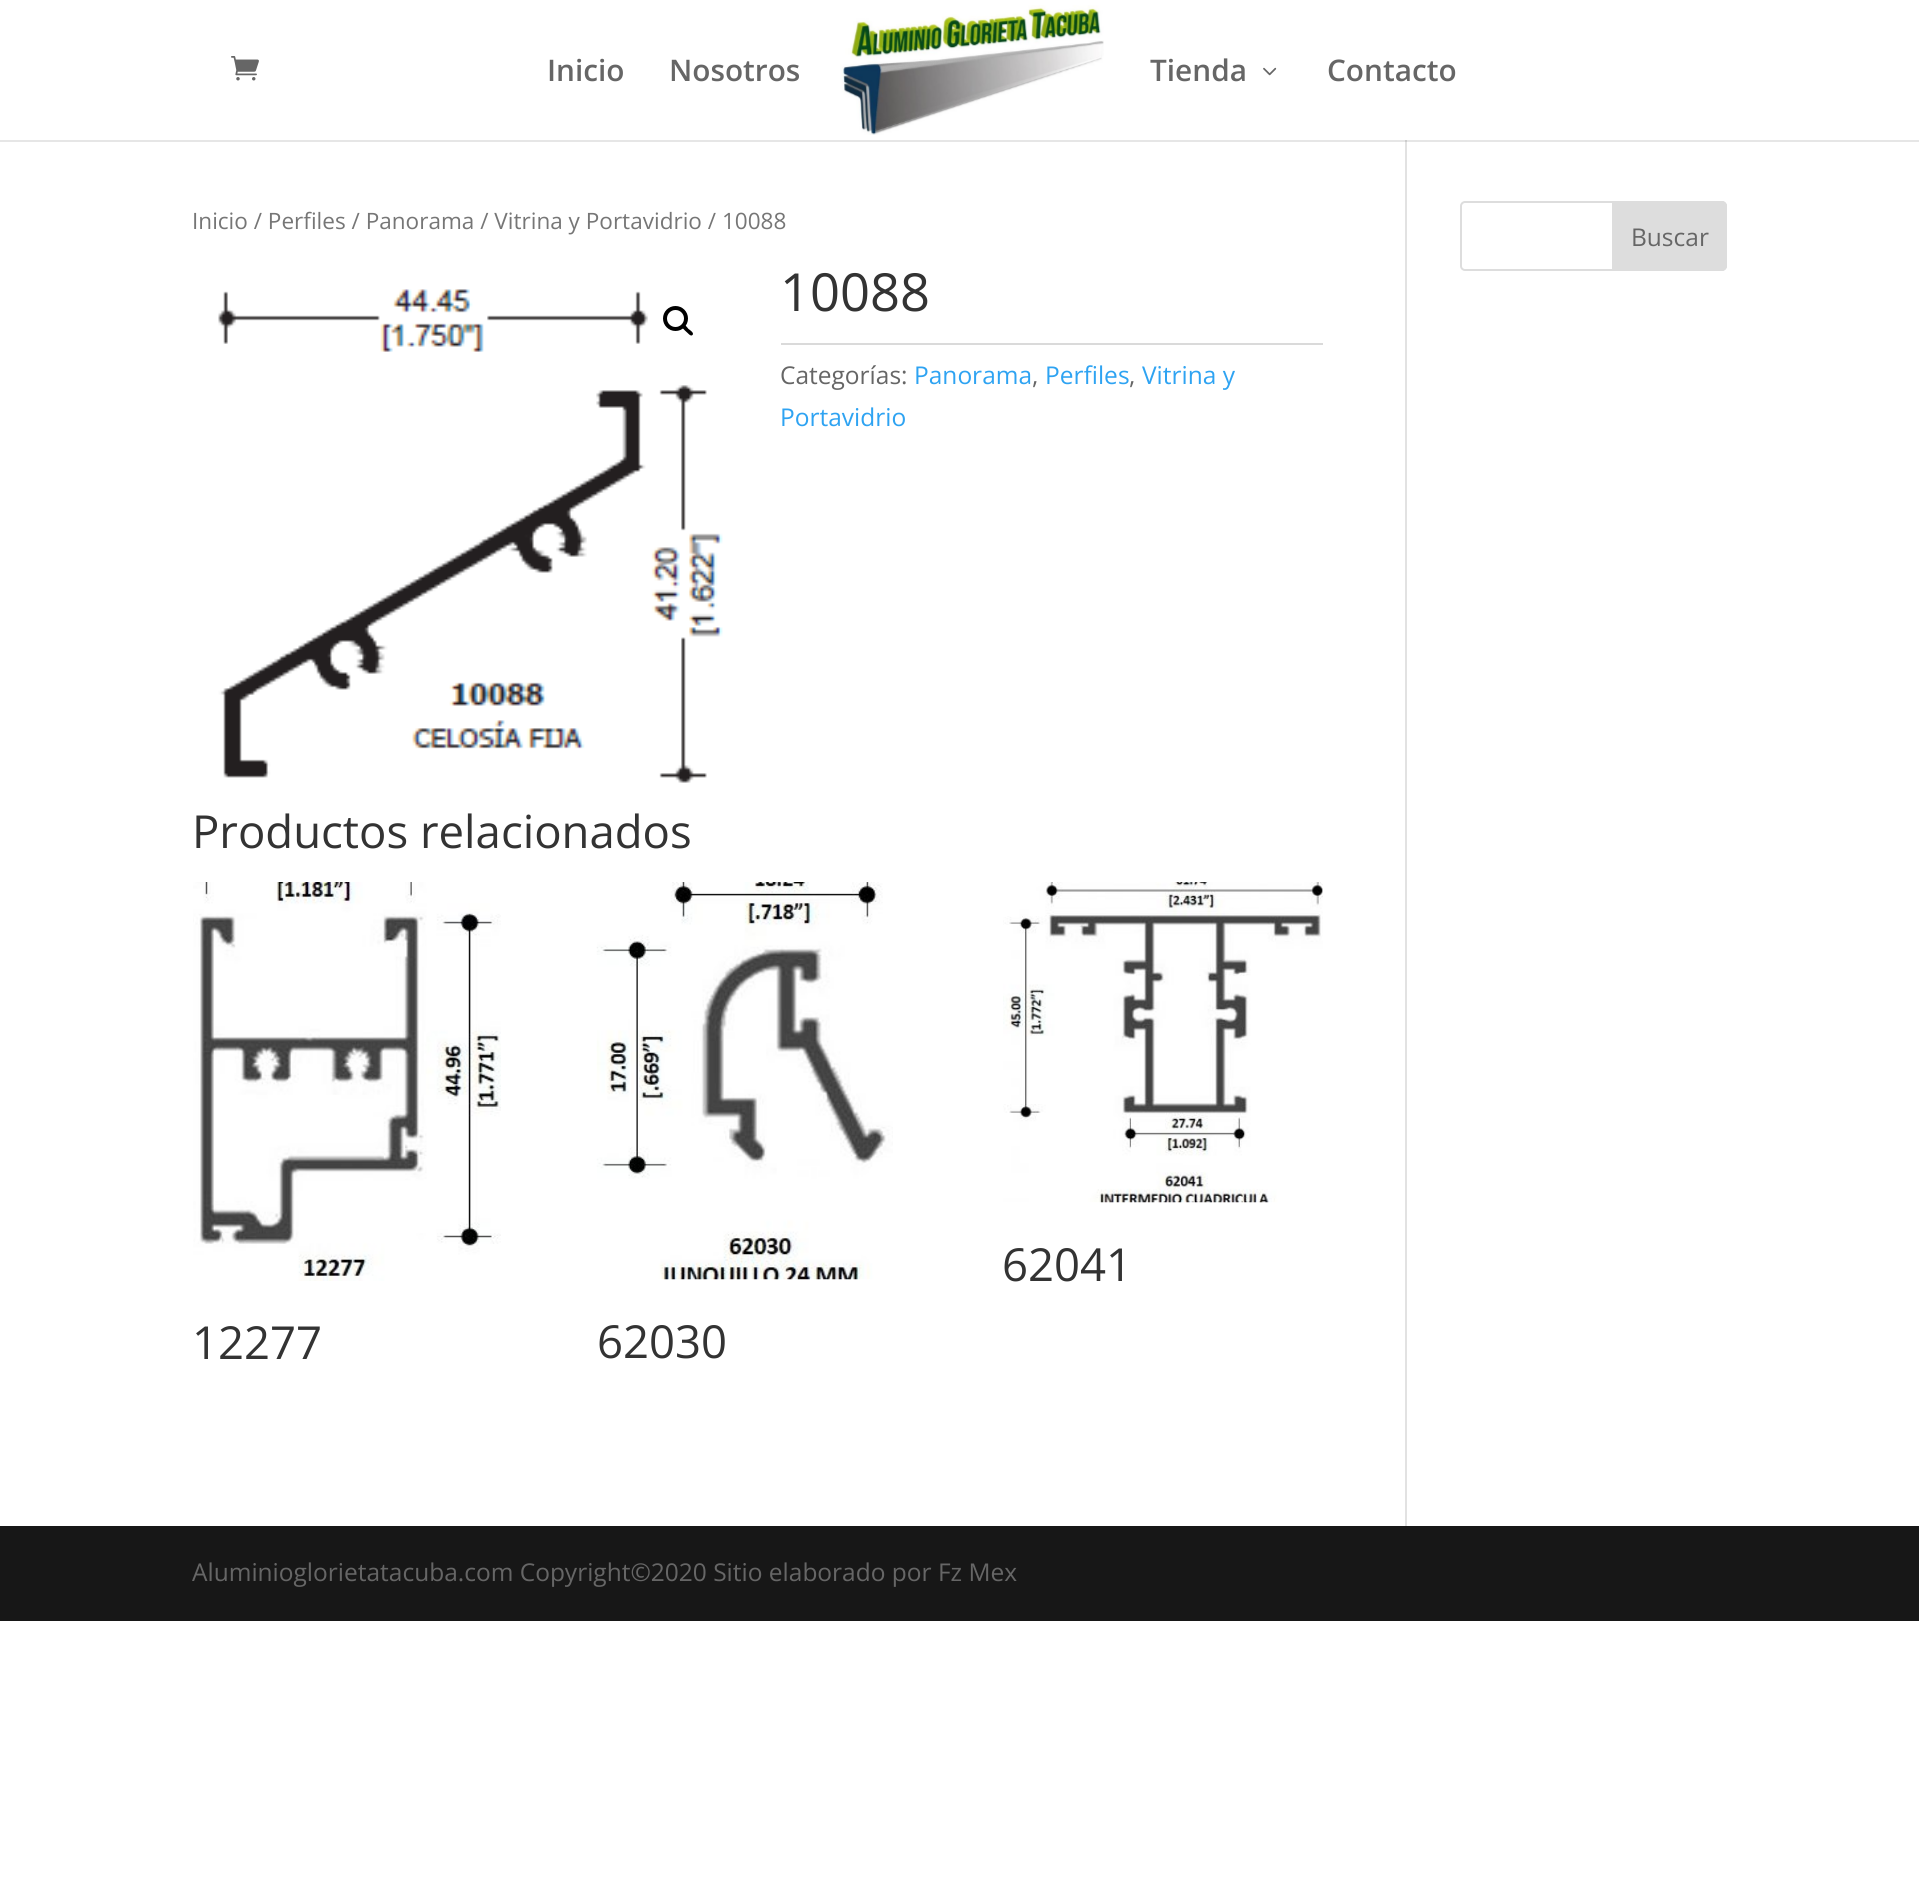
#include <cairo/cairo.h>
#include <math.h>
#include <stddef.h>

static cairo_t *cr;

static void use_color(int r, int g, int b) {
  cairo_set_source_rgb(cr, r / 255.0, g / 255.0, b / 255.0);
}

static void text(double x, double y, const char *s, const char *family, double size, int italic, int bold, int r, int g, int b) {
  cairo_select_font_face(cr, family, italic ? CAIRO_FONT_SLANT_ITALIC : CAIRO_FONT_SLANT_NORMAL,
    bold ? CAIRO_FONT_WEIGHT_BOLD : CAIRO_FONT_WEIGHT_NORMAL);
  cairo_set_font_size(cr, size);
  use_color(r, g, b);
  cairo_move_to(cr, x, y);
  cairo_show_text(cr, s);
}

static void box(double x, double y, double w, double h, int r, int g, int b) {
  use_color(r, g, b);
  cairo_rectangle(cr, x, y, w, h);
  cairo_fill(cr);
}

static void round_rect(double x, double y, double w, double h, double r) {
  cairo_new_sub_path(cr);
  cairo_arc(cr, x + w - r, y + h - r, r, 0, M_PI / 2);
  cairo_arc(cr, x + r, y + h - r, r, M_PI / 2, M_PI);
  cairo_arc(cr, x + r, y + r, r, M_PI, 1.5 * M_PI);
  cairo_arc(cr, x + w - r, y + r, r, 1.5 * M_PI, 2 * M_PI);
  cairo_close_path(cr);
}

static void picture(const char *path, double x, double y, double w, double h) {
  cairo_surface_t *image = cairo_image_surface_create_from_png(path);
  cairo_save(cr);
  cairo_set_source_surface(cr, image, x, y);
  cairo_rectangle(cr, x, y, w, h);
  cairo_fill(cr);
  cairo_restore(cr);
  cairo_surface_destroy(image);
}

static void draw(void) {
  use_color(255, 255, 255);
  cairo_paint(cr);
  box(1405, 140, 2, 1386, 226, 226, 226);
  cairo_set_source_rgba(cr, 0, 0, 0, 0.1);
  cairo_new_path(cr);
  cairo_move_to(cr, 0, 140);
  cairo_line_to(cr, 0, 142);
  cairo_line_to(cr, 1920, 142);
  cairo_line_to(cr, 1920, 2);
  cairo_line_to(cr, 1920, 140);
  cairo_close_path(cr);
  cairo_fill(cr);
  picture("img_01.png", 231, 56, 28, 25);
  picture("img_02.png", 840, 5, 264, 130);
  picture("img_03.png", 1263, 67, 14, 9);
  picture("img_04.png", 218, 289, 505, 494);
  use_color(255, 255, 255);
  cairo_arc(cr, 679.5, 322.5, 31.5, 0, 2 * M_PI);
  cairo_fill(cr);
  cairo_arc(cr, 675.5, 318.5, 10.5, 0, 2 * M_PI);
  use_color(0, 0, 0);
  cairo_set_line_width(cr, 4);
  cairo_stroke(cr);
  cairo_new_path(cr);
  cairo_move_to(cr, 682.5, 325);
  cairo_curve_to(cr, 684.5, 323, 687.5, 328, 688.5, 329);
  cairo_curve_to(cr, 690, 330, 694.5, 333, 692.5, 335);
  cairo_curve_to(cr, 690.5, 337, 687.5, 332.5, 686, 331.5);
  cairo_curve_to(cr, 685, 330.5, 680.5, 327, 682.5, 325);
  cairo_close_path(cr);
  cairo_fill(cr);
  box(781, 343, 542, 2, 218, 218, 218);
  picture("img_05.png", 1003, 882, 320, 321);
  picture("img_06.png", 193, 882, 308, 399);
  picture("img_07.png", 596, 882, 297, 398);
  round_rect(1461, 202, 265, 68, 4);
  use_color(221, 221, 221);
  cairo_set_line_width(cr, 2);
  cairo_stroke(cr);
  cairo_new_path(cr);
  cairo_move_to(cr, 1613, 202);
  cairo_line_to(cr, 1722, 202);
  cairo_curve_to(cr, 1724, 202, 1726, 204, 1726, 206);
  cairo_line_to(cr, 1726, 266);
  cairo_curve_to(cr, 1726, 268, 1724, 270, 1722, 270);
  cairo_line_to(cr, 1613, 270);
  cairo_close_path(cr);
  cairo_fill_preserve(cr);
  cairo_stroke(cr);
  box(0, 1526, 1919, 95, 23, 23, 23);
  text(547, 81, "Inicio", "Open Sans SemiBold", 29.75, 0, 0, 102, 102, 102);
  text(669, 81, "Nosotros", "Open Sans SemiBold", 29.75, 0, 0, 102, 102, 102);
  text(1150, 81, "Tienda", "Open Sans SemiBold", 29.75, 0, 0, 102, 102, 102);
  text(1327, 81, "Contacto", "Open Sans SemiBold", 29.75, 0, 0, 102, 102, 102);
  text(192, 229, "Inicio / Perfiles / Panorama / Vitrina y Portavidrio / 10088", "Open Sans", 22.55, 0, 0, 118, 118, 118);
  text(780, 311, "10088", "Open Sans", 52.5, 0, 0, 51, 51, 51);
  text(780, 384, "Categorías:", "Open Sans", 24.5, 0, 0, 102, 102, 102);
  text(914, 384, "Panorama", "Open Sans", 24.5, 0, 0, 46, 163, 242);
  text(1032, 384, ",", "Open Sans", 24.5, 0, 0, 102, 102, 102);
  text(1045, 384, "Perfiles", "Open Sans", 24.5, 0, 0, 46, 163, 242);
  text(1129, 384, ",", "Open Sans", 24.5, 0, 0, 102, 102, 102);
  text(1142, 384, "Vitrina y", "Open Sans", 24.5, 0, 0, 46, 163, 242);
  text(780, 426, "Portavidrio", "Open Sans", 24.5, 0, 0, 46, 163, 242);
  text(192, 848, "Productos relacionados", "Open Sans", 45.5, 0, 0, 51, 51, 51);
  text(1002, 1281, "62041", "Open Sans", 45.5, 0, 0, 51, 51, 51);
  text(192, 1359, "12277", "Open Sans", 45.5, 0, 0, 51, 51, 51);
  text(597, 1358, "62030", "Open Sans", 45.5, 0, 0, 51, 51, 51);
  text(1631, 246, "Buscar", "Open Sans", 24.5, 0, 0, 102, 102, 102);
  text(192, 1581, "Aluminioglorietatacuba.com Copyright©2020 Sitio elaborado por Fz Mex", "Open Sans", 24.5, 0, 0, 102, 102, 102);
}

int main(void) {
  cairo_surface_t *surface = cairo_image_surface_create(CAIRO_FORMAT_RGB24, 1919, 1878);
  cr = cairo_create(surface);
  cairo_font_options_t *options = cairo_font_options_create();
  cairo_font_options_set_hint_metrics(options, CAIRO_HINT_METRICS_OFF);
  cairo_font_options_set_hint_style(options, CAIRO_HINT_STYLE_NONE);
  cairo_set_font_options(cr, options);
  cairo_set_miter_limit(cr, 4);
  draw();
  cairo_surface_write_to_png(surface, "out.png");
  cairo_font_options_destroy(options);
  cairo_destroy(cr);
  cairo_surface_destroy(surface);
  return 0;
}
